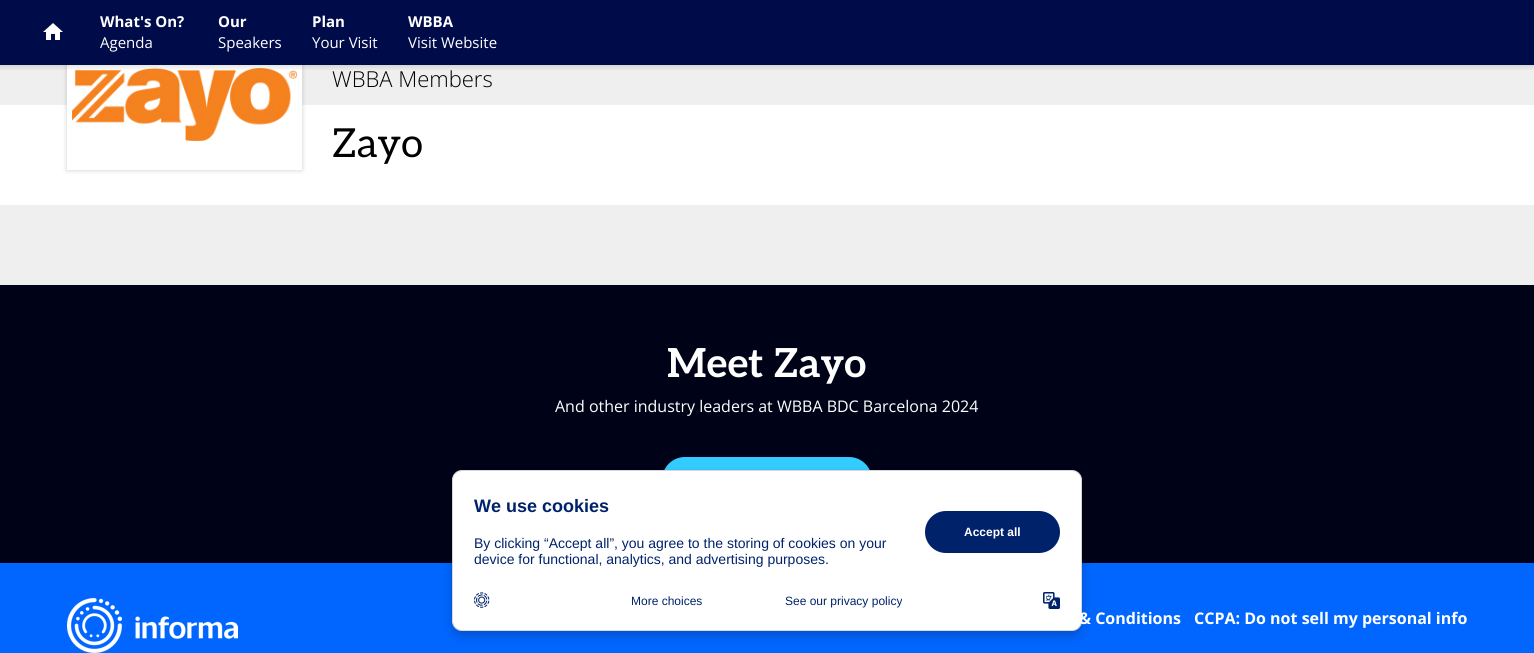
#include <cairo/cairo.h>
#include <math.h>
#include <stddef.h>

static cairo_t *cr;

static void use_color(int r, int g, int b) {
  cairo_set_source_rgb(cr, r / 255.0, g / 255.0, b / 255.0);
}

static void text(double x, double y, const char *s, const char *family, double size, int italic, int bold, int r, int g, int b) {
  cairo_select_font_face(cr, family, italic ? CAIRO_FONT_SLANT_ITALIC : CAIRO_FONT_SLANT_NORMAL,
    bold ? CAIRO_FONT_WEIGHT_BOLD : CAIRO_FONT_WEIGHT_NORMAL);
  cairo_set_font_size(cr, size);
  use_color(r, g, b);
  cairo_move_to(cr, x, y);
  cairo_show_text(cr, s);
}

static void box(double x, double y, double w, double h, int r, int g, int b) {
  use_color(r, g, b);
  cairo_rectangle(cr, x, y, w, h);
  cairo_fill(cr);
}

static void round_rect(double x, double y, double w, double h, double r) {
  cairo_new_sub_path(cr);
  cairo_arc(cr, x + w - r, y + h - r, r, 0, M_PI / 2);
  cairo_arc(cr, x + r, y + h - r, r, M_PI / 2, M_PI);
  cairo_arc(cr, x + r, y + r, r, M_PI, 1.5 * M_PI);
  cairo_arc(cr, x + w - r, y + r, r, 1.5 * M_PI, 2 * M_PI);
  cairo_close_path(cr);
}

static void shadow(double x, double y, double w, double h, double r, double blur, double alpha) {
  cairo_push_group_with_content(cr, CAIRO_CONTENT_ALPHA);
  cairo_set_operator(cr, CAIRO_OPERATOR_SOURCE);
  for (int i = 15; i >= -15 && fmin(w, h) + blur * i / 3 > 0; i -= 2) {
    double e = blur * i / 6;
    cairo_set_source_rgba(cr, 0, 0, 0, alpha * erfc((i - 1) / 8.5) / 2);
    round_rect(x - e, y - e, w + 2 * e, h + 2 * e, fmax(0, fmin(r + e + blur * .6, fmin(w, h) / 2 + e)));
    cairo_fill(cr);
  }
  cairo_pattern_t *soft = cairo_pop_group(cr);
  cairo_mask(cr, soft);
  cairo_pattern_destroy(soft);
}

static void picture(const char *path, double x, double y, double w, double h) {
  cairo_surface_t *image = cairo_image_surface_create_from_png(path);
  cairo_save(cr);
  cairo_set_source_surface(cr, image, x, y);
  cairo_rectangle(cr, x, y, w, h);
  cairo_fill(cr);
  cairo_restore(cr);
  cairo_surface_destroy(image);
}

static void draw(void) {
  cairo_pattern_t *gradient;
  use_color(239, 239, 239);
  cairo_paint(cr);
  box(0, 105, 1534, 100, 255, 255, 255);
  use_color(0, 0, 0);
  shadow(67, 40, 235, 130, 0, 2.5, 0.2);
  box(0, 0, 1534, 65, 0, 11, 74);
  picture("img_01.png", 43, 23, 20, 17);
  box(67, 65, 235, 105, 255, 255, 255);
  picture("img_02.png", 72, 68, 225, 73);
  gradient = cairo_pattern_create_linear(767, 65, 767, 71);
  cairo_pattern_add_color_stop_rgba(gradient, 0, 0, 0, 0, 0.1);
  cairo_pattern_add_color_stop_rgba(gradient, 1, 0, 0, 0, 0);
  cairo_set_source(cr, gradient);
  cairo_pattern_destroy(gradient);
  cairo_rectangle(cr, 0, 65, 1534, 5);
  cairo_fill(cr);
  box(0, 285, 1534, 278, 0, 3, 23);
  use_color(51, 204, 255);
  round_rect(662, 457, 210, 46, 23);
  cairo_fill(cr);
  box(0, 563, 1534, 90, 0, 102, 255);
  picture("img_03.png", 67, 598, 171, 55);
  use_color(0, 0, 0);
  shadow(452, 475, 630, 161, 10, 5, 0.2);
  use_color(255, 255, 255);
  round_rect(452.5, 470.5, 629, 160, 9.5);
  cairo_fill_preserve(cr);
  use_color(216, 216, 216);
  cairo_set_line_width(cr, 1);
  cairo_stroke(cr);
  use_color(0, 34, 106);
  round_rect(925, 511, 135, 42, 21);
  cairo_fill(cr);
  picture("img_04.png", 474, 592, 16, 16);
  picture("img_05.png", 1043, 592, 17, 17);
  text(100, 27, "What's On?", "Open Sans", 15, 0, 1, 255, 255, 255);
  text(100, 48, "Agenda", "Open Sans", 15, 0, 0, 255, 255, 255);
  text(218, 27, "Our", "Open Sans", 15, 0, 1, 255, 255, 255);
  text(218, 48, "Speakers", "Open Sans", 15, 0, 0, 255, 255, 255);
  text(312, 27, "Plan", "Open Sans", 15, 0, 1, 255, 255, 255);
  text(312, 48, "Your Visit", "Open Sans", 15, 0, 0, 255, 255, 255);
  text(408, 27, "WBBA", "Open Sans", 15, 0, 1, 255, 255, 255);
  text(408, 48, "Visit Website", "Open Sans", 15, 0, 0, 255, 255, 255);
  text(332, 87, "WBBA Members", "Open Sans Light", 22, 0, 0, 0, 0, 0);
  text(332, 157, "Zayo", "Aleo", 40, 0, 0, 0, 0, 0);
  text(667, 377, "Meet Zayo", "Aleo", 40, 0, 1, 255, 255, 255);
  text(555, 412, "And other industry leaders at WBBA BDC Barcelona 2024", "Open Sans", 16, 0, 0, 255, 255, 255);
  text(1079, 624, "& Conditions", "Open Sans", 16, 0, 1, 255, 255, 255);
  text(1194, 624, "CCPA: Do not sell my personal info", "Open Sans", 16, 0, 1, 255, 255, 255);
  text(474, 512, "We use cookies", "Liberation Sans", 18, 0, 1, 0, 34, 106);
  text(474, 548, "By clicking “Accept all”, you agree to the storing of cookies on your", "Liberation Sans", 14, 0, 0, 0, 34, 106);
  text(474, 564, "device for functional, analytics, and advertising purposes.", "Liberation Sans", 14, 0, 0, 0, 34, 106);
  text(964, 536, "Accept all", "Liberation Sans", 12, 0, 1, 255, 255, 255);
  text(631, 605, "More choices", "Liberation Sans", 12, 0, 0, 0, 34, 106);
  text(785, 605, "See our privacy policy", "Liberation Sans", 12, 0, 0, 0, 34, 106);
}

int main(void) {
  cairo_surface_t *surface = cairo_image_surface_create(CAIRO_FORMAT_RGB24, 1534, 653);
  cr = cairo_create(surface);
  cairo_font_options_t *options = cairo_font_options_create();
  cairo_font_options_set_hint_metrics(options, CAIRO_HINT_METRICS_OFF);
  cairo_font_options_set_hint_style(options, CAIRO_HINT_STYLE_NONE);
  cairo_set_font_options(cr, options);
  cairo_set_miter_limit(cr, 4);
  draw();
  cairo_surface_write_to_png(surface, "out.png");
  cairo_font_options_destroy(options);
  cairo_destroy(cr);
  cairo_surface_destroy(surface);
  return 0;
}
